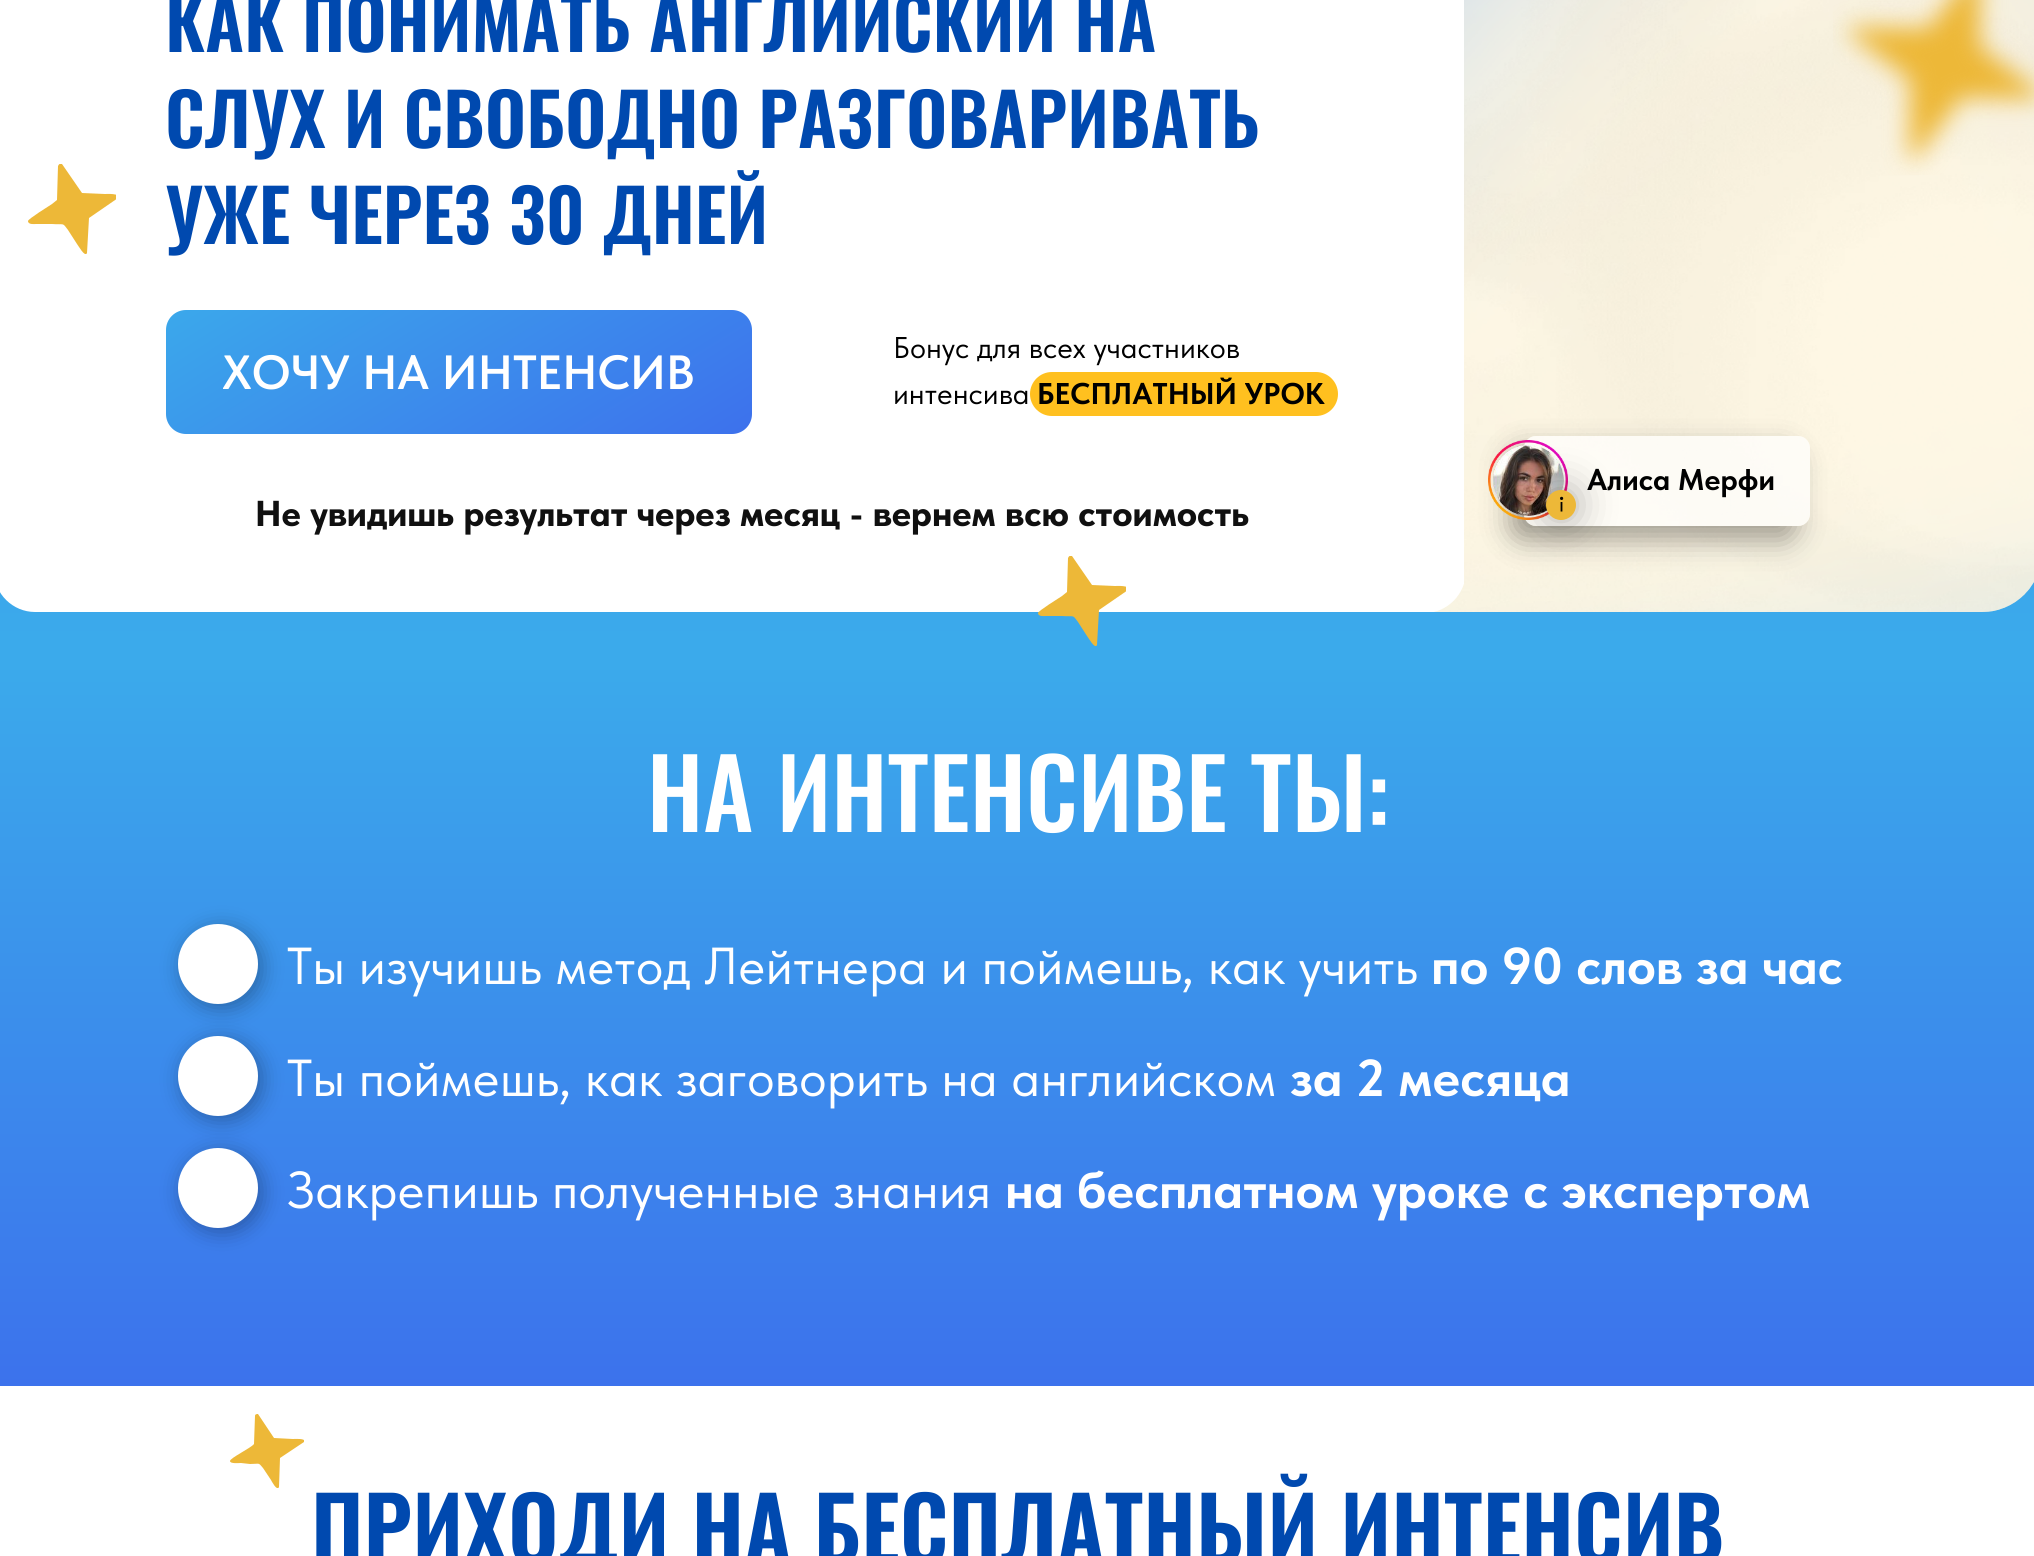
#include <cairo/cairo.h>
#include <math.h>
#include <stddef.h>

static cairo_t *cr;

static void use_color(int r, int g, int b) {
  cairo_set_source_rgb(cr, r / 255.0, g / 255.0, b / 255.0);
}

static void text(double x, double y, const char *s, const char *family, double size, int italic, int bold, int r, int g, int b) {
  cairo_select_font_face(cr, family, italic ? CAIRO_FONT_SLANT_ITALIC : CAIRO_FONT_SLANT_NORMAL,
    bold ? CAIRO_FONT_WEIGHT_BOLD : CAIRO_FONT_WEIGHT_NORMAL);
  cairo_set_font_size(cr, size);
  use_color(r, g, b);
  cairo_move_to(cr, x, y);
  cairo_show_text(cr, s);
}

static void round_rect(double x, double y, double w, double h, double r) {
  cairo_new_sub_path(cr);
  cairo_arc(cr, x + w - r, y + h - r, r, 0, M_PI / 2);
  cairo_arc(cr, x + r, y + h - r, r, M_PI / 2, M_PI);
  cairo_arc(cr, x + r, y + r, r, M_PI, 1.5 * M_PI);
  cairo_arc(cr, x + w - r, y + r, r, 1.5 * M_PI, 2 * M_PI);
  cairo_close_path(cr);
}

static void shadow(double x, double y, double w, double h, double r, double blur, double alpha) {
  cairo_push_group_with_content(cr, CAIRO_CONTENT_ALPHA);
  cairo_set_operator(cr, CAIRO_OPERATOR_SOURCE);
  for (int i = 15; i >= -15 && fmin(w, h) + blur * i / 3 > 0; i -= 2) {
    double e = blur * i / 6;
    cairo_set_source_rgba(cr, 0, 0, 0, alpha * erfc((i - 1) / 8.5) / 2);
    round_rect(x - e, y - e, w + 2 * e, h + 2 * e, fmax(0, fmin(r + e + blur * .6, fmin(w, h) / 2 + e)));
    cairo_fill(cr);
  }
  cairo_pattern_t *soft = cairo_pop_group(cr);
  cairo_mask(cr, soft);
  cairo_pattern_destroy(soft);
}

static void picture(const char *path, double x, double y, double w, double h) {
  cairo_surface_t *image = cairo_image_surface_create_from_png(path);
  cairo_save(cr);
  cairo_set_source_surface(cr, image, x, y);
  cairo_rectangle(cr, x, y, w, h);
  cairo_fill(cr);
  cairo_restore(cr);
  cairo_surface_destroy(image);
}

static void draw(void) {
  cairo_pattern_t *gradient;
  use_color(255, 255, 255);
  cairo_paint(cr);
  gradient = cairo_pattern_create_linear(1017, -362, 1017, 662);
  cairo_pattern_add_color_stop_rgba(gradient, 0, 0.235, 0.447, 0.925, 1);
  cairo_pattern_add_color_stop_rgba(gradient, 0.98, 0.231, 0.667, 0.922, 1);
  cairo_set_source(cr, gradient);
  cairo_pattern_destroy(gradient);
  cairo_rectangle(cr, 0, 0, 2034, 662);
  cairo_fill(cr);
  picture("img_01.png", 1433, 0, 601, 612);
  picture("img_02.png", 1433, 0, 601, 612);
  cairo_save(cr);
  cairo_rectangle(cr, 190, 0, 1274, 612);
  cairo_clip(cr);
  use_color(255, 255, 255);
  cairo_new_path(cr);
  cairo_move_to(cr, 190, -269);
  cairo_curve_to(cr, 190, -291, 209, -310, 231, -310);
  cairo_line_to(cr, 1425, -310);
  cairo_curve_to(cr, 1447, -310, 1466, -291, 1466, -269);
  cairo_line_to(cr, 1466, 571);
  cairo_curve_to(cr, 1466, 594, 1447, 613, 1425, 613);
  cairo_line_to(cr, 231, 613);
  cairo_curve_to(cr, 209, 613, 190, 594, 190, 571);
  cairo_close_path(cr);
  cairo_fill(cr);
  cairo_restore(cr);
  cairo_save(cr);
  cairo_rectangle(cr, 0, 0, 1270, 612);
  cairo_clip(cr);
  use_color(255, 255, 255);
  cairo_new_path(cr);
  cairo_move_to(cr, -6, -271);
  cairo_curve_to(cr, -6, -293, 13, -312, 35, -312);
  cairo_line_to(cr, 1231, -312);
  cairo_curve_to(cr, 1253, -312, 1272, -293, 1272, -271);
  cairo_line_to(cr, 1272, 571);
  cairo_curve_to(cr, 1272, 594, 1253, 612, 1231, 612);
  cairo_line_to(cr, 35, 612);
  cairo_curve_to(cr, 13, 612, -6, 594, -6, 571);
  cairo_close_path(cr);
  cairo_fill(cr);
  cairo_restore(cr);
  picture("img_03.png", 1833, 0, 201, 175);
  cairo_save(cr);
  cairo_rectangle(cr, 28, 164, 88, 90);
  cairo_clip(cr);
  use_color(237, 184, 56);
  cairo_new_path(cr);
  cairo_move_to(cr, 58, 166);
  cairo_curve_to(cr, 59, 164, 60, 163, 62, 164);
  cairo_line_to(cr, 82, 193);
  cairo_line_to(cr, 105, 194);
  cairo_curve_to(cr, 106, 194, 121, 193, 118, 198);
  cairo_line_to(cr, 89, 218);
  cairo_line_to(cr, 87, 253);
  cairo_curve_to(cr, 85, 258, 78, 245, 77, 244);
  cairo_line_to(cr, 68, 230);
  cairo_curve_to(cr, 62, 222, 65, 225, 52, 224);
  cairo_line_to(cr, 36, 224);
  cairo_curve_to(cr, 35, 224, 28, 225, 28, 221);
  cairo_curve_to(cr, 28, 219, 49, 206, 52, 204);
  cairo_line_to(cr, 57, 200);
  cairo_close_path(cr);
  cairo_fill(cr);
  cairo_restore(cr);
  gradient = cairo_pattern_create_linear(349, 196, 569, 548);
  cairo_pattern_add_color_stop_rgba(gradient, 0, 0.231, 0.659, 0.922, 1);
  cairo_pattern_add_color_stop_rgba(gradient, 0.98, 0.239, 0.447, 0.925, 1);
  cairo_set_source(cr, gradient);
  cairo_pattern_destroy(gradient);
  round_rect(166, 310, 586, 124, 20);
  cairo_fill(cr);
  use_color(255, 192, 31);
  round_rect(1030, 372, 308, 44, 22);
  cairo_fill(cr);
  cairo_save(cr);
  cairo_set_fill_rule(cr, CAIRO_FILL_RULE_EVEN_ODD);
  cairo_new_path(cr);
  cairo_move_to(cr, 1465, 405);
  cairo_line_to(cr, 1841, 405);
  cairo_line_to(cr, 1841, 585);
  cairo_line_to(cr, 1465, 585);
  cairo_close_path(cr);
  cairo_move_to(cr, 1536, 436);
  cairo_line_to(cr, 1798, 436);
  cairo_curve_to(cr, 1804.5, 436, 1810, 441.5, 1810, 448);
  cairo_line_to(cr, 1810, 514);
  cairo_curve_to(cr, 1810, 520.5, 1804.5, 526, 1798, 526);
  cairo_line_to(cr, 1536, 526);
  cairo_curve_to(cr, 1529.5, 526, 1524, 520.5, 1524, 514);
  cairo_line_to(cr, 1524, 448);
  cairo_curve_to(cr, 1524, 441.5, 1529.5, 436, 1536, 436);
  cairo_close_path(cr);
  cairo_clip(cr);
  use_color(0, 0, 0);
  shadow(1510, 450, 286, 90, 12, 14.5, 0.35);
  cairo_restore(cr);
  cairo_set_source_rgba(cr, 1, 1, 1, 0.7);
  round_rect(1524, 436, 286, 90, 12);
  cairo_fill(cr);
  picture("img_04.png", 1488, 440, 80, 80);
  use_color(0, 0, 0);
  shadow(1546, 490, 30, 30, 15, 20, 0.3);
  use_color(237, 184, 56);
  cairo_arc(cr, 1561, 505, 15, 0, 2 * M_PI);
  cairo_fill(cr);
  cairo_new_path(cr);
  cairo_move_to(cr, 1561.5, 502);
  cairo_line_to(cr, 1561.5, 511.5);
  use_color(0, 0, 0);
  cairo_set_line_width(cr, 1.8);
  cairo_set_line_join(cr, CAIRO_LINE_JOIN_BEVEL);
  cairo_stroke(cr);
  cairo_arc(cr, 1561.6, 498.4, 1.6, 0, 2 * M_PI);
  cairo_fill(cr);
  cairo_save(cr);
  cairo_rectangle(cr, 1038, 556, 88, 90);
  cairo_clip(cr);
  use_color(237, 184, 56);
  cairo_new_path(cr);
  cairo_move_to(cr, 1068, 558);
  cairo_curve_to(cr, 1069, 556, 1070, 555, 1072, 556);
  cairo_line_to(cr, 1092, 585);
  cairo_line_to(cr, 1115, 586);
  cairo_curve_to(cr, 1116, 586, 1131, 585, 1128, 590);
  cairo_line_to(cr, 1099, 610);
  cairo_line_to(cr, 1097, 645);
  cairo_curve_to(cr, 1095, 650, 1088, 637, 1087, 636);
  cairo_line_to(cr, 1078, 622);
  cairo_curve_to(cr, 1072, 614, 1075, 617, 1062, 616);
  cairo_line_to(cr, 1046, 616);
  cairo_curve_to(cr, 1045, 616, 1038, 617, 1038, 613);
  cairo_curve_to(cr, 1038, 611, 1059, 598, 1062, 596);
  cairo_line_to(cr, 1067, 592);
  cairo_close_path(cr);
  cairo_fill(cr);
  cairo_restore(cr);
  gradient = cairo_pattern_create_linear(1017, 662, 1017, 1386);
  cairo_pattern_add_color_stop_rgba(gradient, 0, 0.231, 0.667, 0.922, 1);
  cairo_pattern_add_color_stop_rgba(gradient, 1, 0.235, 0.447, 0.925, 1);
  cairo_set_source(cr, gradient);
  cairo_pattern_destroy(gradient);
  cairo_rectangle(cr, 0, 662, 2034, 724);
  cairo_fill(cr);
  use_color(0, 0, 0);
  shadow(182, 1040, 80, 80, 40, 10.5, 0.3);
  use_color(255, 255, 255);
  cairo_arc(cr, 218, 1076, 40, 0, 2 * M_PI);
  cairo_fill(cr);
  use_color(0, 0, 0);
  shadow(182, 928, 80, 80, 40, 10.5, 0.3);
  use_color(255, 255, 255);
  cairo_arc(cr, 218, 964, 40, 0, 2 * M_PI);
  cairo_fill(cr);
  use_color(0, 0, 0);
  shadow(182, 1152, 80, 80, 40, 10.5, 0.3);
  use_color(255, 255, 255);
  cairo_arc(cr, 218, 1188, 40, 0, 2 * M_PI);
  cairo_fill(cr);
  cairo_save(cr);
  cairo_rectangle(cr, 230, 1414, 74, 74);
  cairo_clip(cr);
  use_color(237, 184, 56);
  cairo_new_path(cr);
  cairo_move_to(cr, 255, 1416);
  cairo_curve_to(cr, 255, 1414, 257, 1414, 258, 1414);
  cairo_line_to(cr, 274, 1438);
  cairo_line_to(cr, 293, 1439);
  cairo_curve_to(cr, 294, 1439, 307, 1438, 304, 1442);
  cairo_line_to(cr, 280, 1458);
  cairo_line_to(cr, 279, 1487);
  cairo_curve_to(cr, 277, 1492, 271, 1480, 271, 1480);
  cairo_line_to(cr, 263, 1468);
  cairo_curve_to(cr, 258, 1462, 260, 1464, 250, 1464);
  cairo_line_to(cr, 241, 1463);
  cairo_curve_to(cr, 239, 1463, 230, 1464, 230, 1461);
  cairo_curve_to(cr, 230, 1458, 251, 1448, 254, 1444);
  cairo_close_path(cr);
  cairo_fill(cr);
  cairo_restore(cr);
  text(165, 52, "КАК ПОНИМАТЬ АНГЛИЙСКИЙ НА", "Oswald SemiBold", 72, 0, 0, 0, 73, 175);
  text(165, 148, "СЛУХ И СВОБОДНО РАЗГОВАРИВАТЬ", "Oswald SemiBold", 72, 0, 0, 0, 73, 175);
  text(165, 244, "УЖЕ ЧЕРЕЗ 30 ДНЕЙ", "Oswald SemiBold", 72, 0, 0, 0, 73, 175);
  text(222, 389, "ХОЧУ НА ИНТЕНСИВ", "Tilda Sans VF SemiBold", 48, 0, 0, 255, 255, 255);
  text(893, 358, "Бонус для всех участников", "Tilda Sans VF", 30, 0, 0, 0, 0, 0);
  text(893, 404, "интенсива", "Tilda Sans VF", 30, 0, 0, 0, 0, 0);
  text(1037, 404, "БЕСПЛАТНЫЙ УРОК", "Tilda Sans VF", 30, 0, 1, 0, 0, 0);
  text(1587, 490, "Алиса Мерфи", "Tilda Sans VF", 30, 0, 1, 0, 0, 0);
  text(255, 526, "Не увидишь результат через месяц - вернем всю стоимость", "Tilda Sans VF ExtraBold", 36, 0, 0, 16, 16, 16);
  text(647, 832, "НА ИНТЕНСИВЕ ТЫ:", "Oswald Medium", 96, 0, 0, 255, 255, 255);
  text(287, 984, "Ты изучишь метод Лейтнера и поймешь, как учить", "Tilda Sans VF", 52, 0, 0, 255, 255, 255);
  text(1431, 984, "по 90 слов за час", "Tilda Sans VF", 52, 0, 1, 255, 255, 255);
  text(287, 1096, "Ты поймешь, как заговорить на английском", "Tilda Sans VF", 52, 0, 0, 255, 255, 255);
  text(1290, 1096, "за 2 месяца", "Tilda Sans VF", 52, 0, 1, 255, 255, 255);
  text(287, 1208, "Закрепишь полученные знания", "Tilda Sans VF", 52, 0, 0, 255, 255, 255);
  text(1005, 1208, "на бесплатном уроке с экспертом", "Tilda Sans VF", 52, 0, 1, 255, 255, 255);
  text(311, 1564, "ПРИХОДИ НА БЕСПЛАТНЫЙ ИНТЕНСИВ", "Oswald SemiBold", 88, 0, 0, 0, 73, 175);
}

int main(void) {
  cairo_surface_t *surface = cairo_image_surface_create(CAIRO_FORMAT_RGB24, 2034, 1556);
  cr = cairo_create(surface);
  cairo_font_options_t *options = cairo_font_options_create();
  cairo_font_options_set_hint_metrics(options, CAIRO_HINT_METRICS_OFF);
  cairo_font_options_set_hint_style(options, CAIRO_HINT_STYLE_NONE);
  cairo_set_font_options(cr, options);
  cairo_set_miter_limit(cr, 4);
  draw();
  cairo_surface_write_to_png(surface, "out.png");
  cairo_font_options_destroy(options);
  cairo_destroy(cr);
  cairo_surface_destroy(surface);
  return 0;
}
